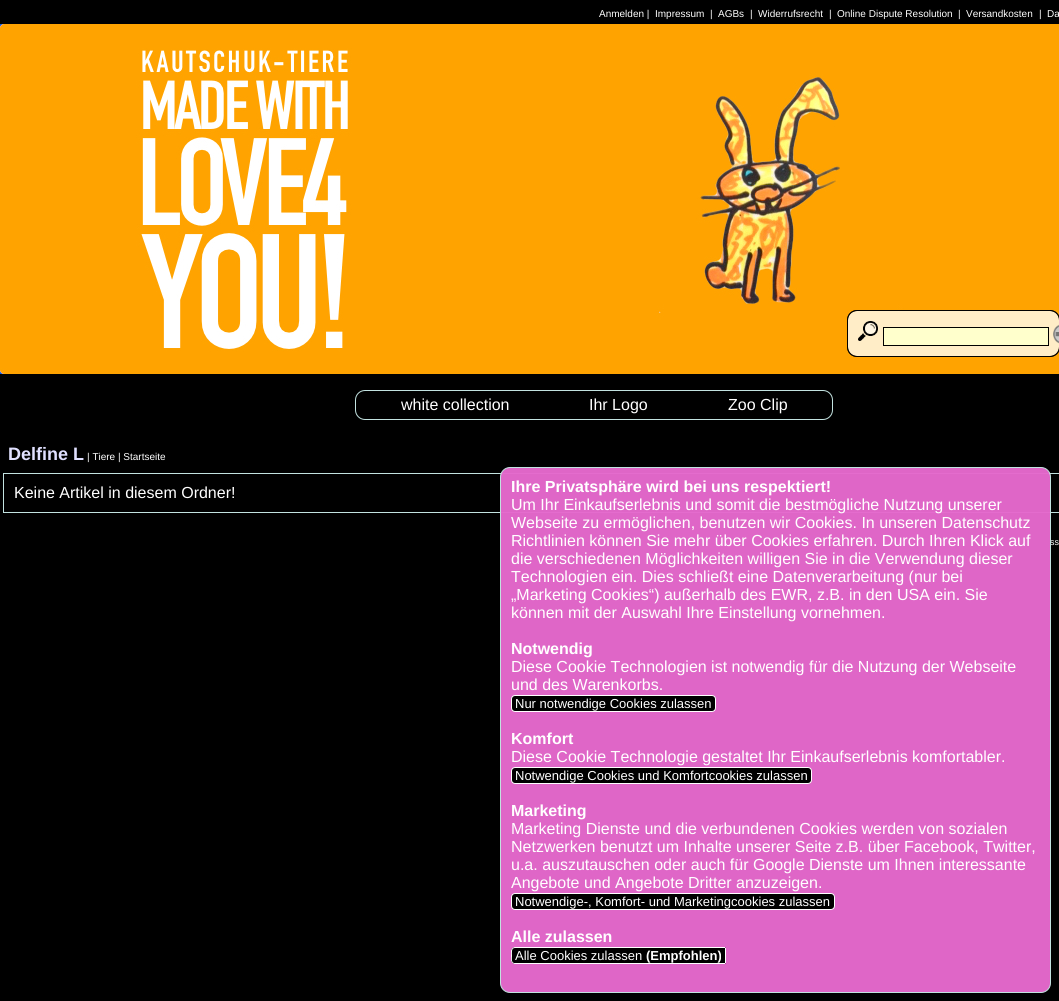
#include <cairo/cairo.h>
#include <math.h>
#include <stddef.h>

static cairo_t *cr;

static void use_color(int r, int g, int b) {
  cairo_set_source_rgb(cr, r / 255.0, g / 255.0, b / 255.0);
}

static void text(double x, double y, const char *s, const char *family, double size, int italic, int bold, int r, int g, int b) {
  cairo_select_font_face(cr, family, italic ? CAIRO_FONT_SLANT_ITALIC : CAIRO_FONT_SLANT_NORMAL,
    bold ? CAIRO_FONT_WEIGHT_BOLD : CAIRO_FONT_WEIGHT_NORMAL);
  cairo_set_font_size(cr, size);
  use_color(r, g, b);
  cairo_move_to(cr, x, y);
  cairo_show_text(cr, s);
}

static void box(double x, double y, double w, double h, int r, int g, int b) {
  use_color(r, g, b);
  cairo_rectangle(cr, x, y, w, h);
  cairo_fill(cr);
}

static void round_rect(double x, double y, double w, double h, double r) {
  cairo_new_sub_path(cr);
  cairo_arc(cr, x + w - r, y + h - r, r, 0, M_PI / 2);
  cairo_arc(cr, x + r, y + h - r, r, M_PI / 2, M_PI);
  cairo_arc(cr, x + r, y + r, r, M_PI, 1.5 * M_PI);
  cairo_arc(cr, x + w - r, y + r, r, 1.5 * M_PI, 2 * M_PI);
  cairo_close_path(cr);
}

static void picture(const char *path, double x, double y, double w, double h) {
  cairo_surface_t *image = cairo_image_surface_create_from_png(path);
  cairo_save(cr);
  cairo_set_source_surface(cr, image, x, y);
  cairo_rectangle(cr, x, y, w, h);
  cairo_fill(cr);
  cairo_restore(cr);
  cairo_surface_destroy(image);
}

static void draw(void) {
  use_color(0, 0, 0);
  cairo_paint(cr);
  picture("img_01.png", 0, 24, 1059, 350);
  cairo_set_source_rgba(cr, 1, 1, 0.976, 0.8);
  round_rect(847.5, 310.5, 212, 46, 9.5);
  cairo_fill_preserve(cr);
  use_color(51, 33, 0);
  cairo_set_line_width(cr, 1);
  cairo_stroke(cr);
  round_rect(847.5, 310.5, 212, 46, 9.5);
  use_color(0, 0, 0);
  cairo_stroke(cr);
  picture("img_02.png", 858, 321, 20, 20);
  use_color(255, 255, 204);
  cairo_rectangle(cr, 883.5, 327.5, 165, 18);
  cairo_fill_preserve(cr);
  use_color(0, 0, 0);
  cairo_stroke(cr);
  picture("img_03.png", 1053, 324, 6, 20);
  round_rect(355.5, 390.5, 477, 29, 9.5);
  use_color(194, 226, 224);
  cairo_stroke(cr);
  cairo_rectangle(cr, 3.5, 473.5, 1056, 39);
  cairo_stroke(cr);
  text(599, 17, "Anmelden |", "Liberation Sans", 10, 0, 0, 255, 255, 255);
  text(655, 17, "Impressum", "Liberation Sans", 10, 0, 0, 255, 255, 255);
  text(710, 17, "|", "Liberation Sans", 10, 0, 0, 255, 255, 255);
  text(718, 17, "AGBs", "Liberation Sans", 10, 0, 0, 255, 255, 255);
  text(750, 17, "|", "Liberation Sans", 10, 0, 0, 255, 255, 255);
  text(758, 17, "Widerrufsrecht", "Liberation Sans", 10, 0, 0, 255, 255, 255);
  text(829, 17, "|", "Liberation Sans", 10, 0, 0, 255, 255, 255);
  text(837, 17, "Online Dispute Resolution", "Liberation Sans", 10, 0, 0, 255, 255, 255);
  text(958, 17, "|", "Liberation Sans", 10, 0, 0, 255, 255, 255);
  text(966, 17, "Versandkosten", "Liberation Sans", 10, 0, 0, 255, 255, 255);
  text(1039, 17, "|", "Liberation Sans", 10, 0, 0, 255, 255, 255);
  text(1047, 17, "Da", "Liberation Sans", 10, 0, 0, 255, 255, 255);
  text(401, 410, "white collection", "Liberation Sans", 16, 0, 0, 255, 255, 255);
  text(589, 410, "Ihr Logo", "Liberation Sans", 16, 0, 0, 255, 255, 255);
  text(728, 410, "Zoo Clip", "Liberation Sans", 16, 0, 0, 255, 255, 255);
  text(8, 460, "Delfine L", "Liberation Sans", 18, 0, 1, 224, 224, 255);
  text(87, 460, "| Tiere | Startseite", "Liberation Sans", 10, 0, 0, 255, 255, 255);
  text(14, 498, "Keine Artikel in diesem Ordner!", "Liberation Sans", 16, 0, 0, 255, 255, 255);
  text(1050, 545, "ss", "Liberation Sans", 9, 0, 0, 255, 255, 255);
  cairo_set_source_rgba(cr, 0.902, 0.412, 0.804, 0.97);
  round_rect(500.5, 467.5, 550, 525, 9.5);
  cairo_fill_preserve(cr);
  use_color(194, 226, 224);
  cairo_stroke(cr);
  box(646, 948, 76, 15, 0, 0, 0);
  text(646, 960, "(Empfohlen)", "Liberation Sans", 13, 0, 1, 255, 255, 255);
  use_color(0, 0, 0);
  cairo_new_path(cr);
  cairo_move_to(cr, 515, 947);
  cairo_line_to(cr, 646, 947);
  cairo_line_to(cr, 646, 964);
  cairo_line_to(cr, 515, 964);
  cairo_curve_to(cr, 513, 964, 511, 962, 511, 960);
  cairo_line_to(cr, 511, 951);
  cairo_curve_to(cr, 511, 949, 513, 947, 515, 947);
  cairo_close_path(cr);
  cairo_fill(cr);
  use_color(255, 255, 255);
  cairo_set_fill_rule(cr, CAIRO_FILL_RULE_EVEN_ODD);
  cairo_new_path(cr);
  cairo_move_to(cr, 515, 947);
  cairo_line_to(cr, 646, 947);
  cairo_line_to(cr, 646, 964);
  cairo_line_to(cr, 515, 964);
  cairo_curve_to(cr, 513, 964, 511, 962, 511, 960);
  cairo_line_to(cr, 511, 951);
  cairo_curve_to(cr, 511, 949, 513, 947, 515, 947);
  cairo_close_path(cr);
  cairo_move_to(cr, 515, 948);
  cairo_line_to(cr, 646, 948);
  cairo_line_to(cr, 646, 963);
  cairo_line_to(cr, 514, 963);
  cairo_curve_to(cr, 511, 962, 512, 958, 512, 956);
  cairo_curve_to(cr, 512, 953, 511, 948, 515, 948);
  cairo_close_path(cr);
  cairo_fill(cr);
  text(515, 960, "Alle Cookies zulassen", "Liberation Sans", 13, 0, 0, 255, 255, 255);
  use_color(0, 0, 0);
  cairo_new_path(cr);
  cairo_move_to(cr, 722, 947);
  cairo_line_to(cr, 724, 947);
  cairo_curve_to(cr, 725, 947, 726, 948, 726, 949);
  cairo_line_to(cr, 726, 962);
  cairo_curve_to(cr, 726, 963, 725, 964, 724, 964);
  cairo_line_to(cr, 722, 964);
  cairo_close_path(cr);
  cairo_fill(cr);
  box(722, 963, 3, 1, 255, 255, 255);
  box(725, 948, 1, 15, 255, 255, 255);
  box(722, 947, 3, 1, 255, 255, 255);
  box(646, 963, 76, 1, 255, 255, 255);
  box(646, 947, 76, 1, 255, 255, 255);
  text(511, 942, "Alle zulassen", "Liberation Sans", 16, 0, 1, 255, 255, 255);
  use_color(0, 0, 0);
  round_rect(511.5, 893.5, 323, 16, 3.5);
  cairo_fill_preserve(cr);
  use_color(255, 255, 255);
  cairo_stroke(cr);
  text(515, 906, "Notwendige-, Komfort- und Marketingcookies zulassen", "Liberation Sans", 13, 0, 0, 255, 255, 255);
  text(511, 888, "Angebote und Angebote Dritter anzuzeigen.", "Liberation Sans", 16, 0, 0, 255, 255, 255);
  text(511, 870, "u.a. auszutauschen oder auch für Google Dienste um Ihnen interessante", "Liberation Sans", 16, 0, 0, 255, 255, 255);
  text(511, 852, "Netzwerken benutzt um Inhalte unserer Seite z.B. über Facebook, Twitter,", "Liberation Sans", 16, 0, 0, 255, 255, 255);
  text(511, 834, "Marketing Dienste und die verbundenen Cookies werden von sozialen", "Liberation Sans", 16, 0, 0, 255, 255, 255);
  text(511, 816, "Marketing", "Liberation Sans", 16, 0, 1, 255, 255, 255);
  use_color(0, 0, 0);
  round_rect(511.5, 767.5, 300, 16, 3.5);
  cairo_fill_preserve(cr);
  use_color(255, 255, 255);
  cairo_stroke(cr);
  text(515, 780, "Notwendige Cookies und Komfortcookies zulassen", "Liberation Sans", 13, 0, 0, 255, 255, 255);
  text(511, 762, "Diese Cookie Technologie gestaltet Ihr Einkaufserlebnis komfortabler.", "Liberation Sans", 16, 0, 0, 255, 255, 255);
  text(511, 744, "Komfort", "Liberation Sans", 16, 0, 1, 255, 255, 255);
  use_color(0, 0, 0);
  round_rect(511.5, 695.5, 204, 16, 3.5);
  cairo_fill_preserve(cr);
  use_color(255, 255, 255);
  cairo_stroke(cr);
  text(515, 708, "Nur notwendige Cookies zulassen", "Liberation Sans", 13, 0, 0, 255, 255, 255);
  text(511, 690, "und des Warenkorbs.", "Liberation Sans", 16, 0, 0, 255, 255, 255);
  text(511, 672, "Diese Cookie Technologien ist notwendig für die Nutzung der Webseite", "Liberation Sans", 16, 0, 0, 255, 255, 255);
  text(511, 654, "Notwendig", "Liberation Sans", 16, 0, 1, 255, 255, 255);
  text(511, 618, "können mit der Auswahl Ihre Einstellung vornehmen.", "Liberation Sans", 16, 0, 0, 255, 255, 255);
  text(511, 600, "„Marketing Cookies“) außerhalb des EWR, z.B. in den USA ein. Sie", "Liberation Sans", 16, 0, 0, 255, 255, 255);
  text(511, 582, "Technologien ein. Dies schließt eine Datenverarbeitung (nur bei", "Liberation Sans", 16, 0, 0, 255, 255, 255);
  text(511, 564, "die verschiedenen Möglichkeiten willigen Sie in die Verwendung dieser", "Liberation Sans", 16, 0, 0, 255, 255, 255);
  text(511, 546, "Richtlinien können Sie mehr über Cookies erfahren. Durch Ihren Klick auf", "Liberation Sans", 16, 0, 0, 255, 255, 255);
  text(511, 528, "Webseite zu ermöglichen, benutzen wir Cookies. In unseren Datenschutz", "Liberation Sans", 16, 0, 0, 255, 255, 255);
  text(511, 510, "Um Ihr Einkaufserlebnis und somit die bestmögliche Nutzung unserer", "Liberation Sans", 16, 0, 0, 255, 255, 255);
  text(511, 492, "Ihre Privatsphäre wird bei uns respektiert!", "Liberation Sans", 16, 0, 1, 255, 255, 255);
}

int main(void) {
  cairo_surface_t *surface = cairo_image_surface_create(CAIRO_FORMAT_RGB24, 1059, 1001);
  cr = cairo_create(surface);
  cairo_font_options_t *options = cairo_font_options_create();
  cairo_font_options_set_hint_metrics(options, CAIRO_HINT_METRICS_OFF);
  cairo_font_options_set_hint_style(options, CAIRO_HINT_STYLE_NONE);
  cairo_set_font_options(cr, options);
  cairo_set_miter_limit(cr, 4);
  draw();
  cairo_surface_write_to_png(surface, "out.png");
  cairo_font_options_destroy(options);
  cairo_destroy(cr);
  cairo_surface_destroy(surface);
  return 0;
}
